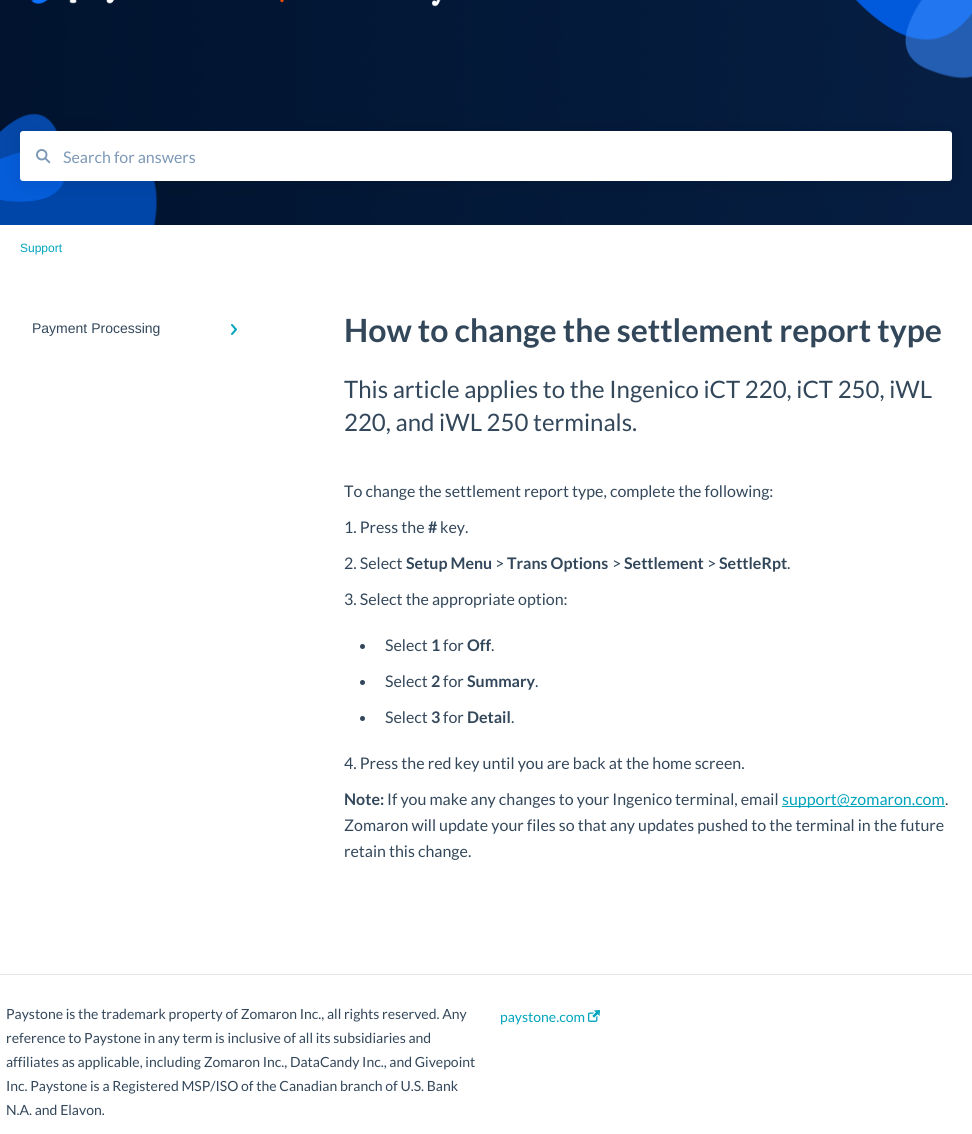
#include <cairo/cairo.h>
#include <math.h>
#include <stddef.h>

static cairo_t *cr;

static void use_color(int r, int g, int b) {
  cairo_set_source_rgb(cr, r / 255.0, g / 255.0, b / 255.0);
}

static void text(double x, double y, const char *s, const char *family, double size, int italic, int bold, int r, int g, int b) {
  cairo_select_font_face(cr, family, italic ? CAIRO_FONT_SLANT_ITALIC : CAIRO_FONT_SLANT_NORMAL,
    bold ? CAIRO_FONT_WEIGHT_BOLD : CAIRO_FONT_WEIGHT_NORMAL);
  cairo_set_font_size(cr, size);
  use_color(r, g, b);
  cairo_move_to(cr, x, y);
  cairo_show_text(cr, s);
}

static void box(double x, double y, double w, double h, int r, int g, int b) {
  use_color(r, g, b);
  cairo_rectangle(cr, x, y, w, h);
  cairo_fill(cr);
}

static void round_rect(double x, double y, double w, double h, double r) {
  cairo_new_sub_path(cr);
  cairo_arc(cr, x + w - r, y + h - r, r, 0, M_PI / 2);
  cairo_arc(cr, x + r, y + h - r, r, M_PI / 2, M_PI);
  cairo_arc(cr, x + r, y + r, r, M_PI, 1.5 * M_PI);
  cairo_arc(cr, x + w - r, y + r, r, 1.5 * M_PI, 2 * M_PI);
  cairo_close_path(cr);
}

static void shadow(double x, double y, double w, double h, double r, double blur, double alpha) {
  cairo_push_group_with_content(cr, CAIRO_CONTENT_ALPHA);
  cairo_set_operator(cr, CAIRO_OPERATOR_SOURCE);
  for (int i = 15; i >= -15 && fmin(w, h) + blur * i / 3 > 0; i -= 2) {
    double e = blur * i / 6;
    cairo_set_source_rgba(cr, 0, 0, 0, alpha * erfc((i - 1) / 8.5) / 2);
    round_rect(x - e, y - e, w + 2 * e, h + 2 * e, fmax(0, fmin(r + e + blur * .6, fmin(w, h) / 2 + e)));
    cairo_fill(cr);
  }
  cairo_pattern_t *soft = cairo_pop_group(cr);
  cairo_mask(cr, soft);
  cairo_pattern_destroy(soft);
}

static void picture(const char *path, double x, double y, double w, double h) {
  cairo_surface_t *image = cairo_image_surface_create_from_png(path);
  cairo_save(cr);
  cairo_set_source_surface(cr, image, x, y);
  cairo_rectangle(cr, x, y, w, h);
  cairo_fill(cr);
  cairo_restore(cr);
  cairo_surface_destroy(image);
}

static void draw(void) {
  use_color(255, 255, 255);
  cairo_paint(cr);
  picture("img_02.png", 0, 0, 972, 225);
  picture("img_01.png", 31, 0, 410, 7);
  use_color(0, 0, 0);
  shadow(20, 132, 932, 50, 3, 12, 0.08);
  use_color(255, 255, 255);
  round_rect(20, 131, 932, 50, 3);
  cairo_fill(cr);
  picture("img_03.png", 36, 149, 15, 15);
  cairo_new_path(cr);
  cairo_move_to(cr, 232, 325);
  cairo_line_to(cr, 236, 329.5);
  cairo_line_to(cr, 232, 334);
  use_color(0, 164, 189);
  cairo_set_line_cap(cr, CAIRO_LINE_CAP_ROUND);
  cairo_set_line_join(cr, CAIRO_LINE_JOIN_ROUND);
  cairo_stroke(cr);
  use_color(51, 71, 91);
  cairo_arc(cr, 362.5, 646.5, 2.5, 0, 2 * M_PI);
  cairo_fill(cr);
  cairo_arc(cr, 362.5, 682.5, 2.5, 0, 2 * M_PI);
  cairo_fill(cr);
  cairo_arc(cr, 362.5, 718.5, 2.5, 0, 2 * M_PI);
  cairo_fill(cr);
  box(782, 806, 163, 1, 0, 164, 189);
  box(0, 974, 972, 1, 230, 230, 230);
  picture("img_04.png", 588, 1010, 12, 12);
  text(63, 163, "Search for answers", "Lato", 16, 0, 0, 124, 152, 182);
  text(20, 252, "Support", "Liberation Sans", 12, 0, 0, 0, 164, 189);
  text(32, 333, "Payment Processing", "Liberation Sans", 14, 0, 0, 51, 71, 91);
  text(344, 342, "How to change the settlement report type", "Lato", 32, 0, 1, 51, 71, 91);
  text(344, 398, "This article applies to the Ingenico iCT 220, iCT 250, iWL", "Lato", 24, 0, 0, 51, 71, 91);
  text(344, 431, "220, and iWL 250 terminals.", "Lato", 24, 0, 0, 51, 71, 91);
  text(344, 497, "To change the settlement report type, complete the following:", "Lato", 16, 0, 0, 51, 71, 91);
  text(344, 533, "1. Press the", "Lato", 16, 0, 0, 51, 71, 91);
  text(428, 533, "#", "Lato", 16, 0, 1, 51, 71, 91);
  text(440, 533, "key.", "Lato", 16, 0, 0, 51, 71, 91);
  text(344, 569, "2. Select", "Lato", 16, 0, 0, 51, 71, 91);
  text(406, 569, "Setup Menu", "Lato", 16, 0, 1, 51, 71, 91);
  text(495, 569, ">", "Lato", 16, 0, 0, 51, 71, 91);
  text(507, 569, "Trans Options", "Lato", 16, 0, 1, 51, 71, 91);
  text(612, 569, ">", "Lato", 16, 0, 0, 51, 71, 91);
  text(624, 569, "Settlement", "Lato", 16, 0, 1, 51, 71, 91);
  text(707, 569, ">", "Lato", 16, 0, 0, 51, 71, 91);
  text(719, 569, "SettleRpt", "Lato", 16, 0, 1, 51, 71, 91);
  text(787, 569, ".", "Lato", 16, 0, 0, 51, 71, 91);
  text(344, 605, "3. Select the appropriate option:", "Lato", 16, 0, 0, 51, 71, 91);
  text(385, 651, "Select", "Lato", 16, 0, 0, 51, 71, 91);
  text(431, 651, "1", "Lato", 16, 0, 1, 51, 71, 91);
  text(443, 651, "for", "Lato", 16, 0, 0, 51, 71, 91);
  text(467, 651, "Off", "Lato", 16, 0, 1, 51, 71, 91);
  text(491, 651, ".", "Lato", 16, 0, 0, 51, 71, 91);
  text(385, 687, "Select", "Lato", 16, 0, 0, 51, 71, 91);
  text(431, 687, "2", "Lato", 16, 0, 1, 51, 71, 91);
  text(443, 687, "for", "Lato", 16, 0, 0, 51, 71, 91);
  text(467, 687, "Summary", "Lato", 16, 0, 1, 51, 71, 91);
  text(535, 687, ".", "Lato", 16, 0, 0, 51, 71, 91);
  text(385, 723, "Select", "Lato", 16, 0, 0, 51, 71, 91);
  text(431, 723, "3", "Lato", 16, 0, 1, 51, 71, 91);
  text(443, 723, "for", "Lato", 16, 0, 0, 51, 71, 91);
  text(467, 723, "Detail", "Lato", 16, 0, 1, 51, 71, 91);
  text(511, 723, ".", "Lato", 16, 0, 0, 51, 71, 91);
  text(344, 769, "4. Press the red key until you are back at the home screen.", "Lato", 16, 0, 0, 51, 71, 91);
  text(344, 805, "Note:", "Lato", 16, 0, 1, 51, 71, 91);
  text(387, 805, "If you make any changes to your Ingenico terminal, email", "Lato", 16, 0, 0, 51, 71, 91);
  text(782, 805, "support@zomaron.com", "Lato", 16, 0, 0, 0, 164, 189);
  text(945, 805, ".", "Lato", 16, 0, 0, 51, 71, 91);
  text(344, 831, "Zomaron will update your files so that any updates pushed to the terminal in the future", "Lato", 16, 0, 0, 51, 71, 91);
  text(344, 857, "retain this change.", "Lato", 16, 0, 0, 51, 71, 91);
  text(6, 1019, "Paystone is the trademark property of Zomaron Inc., all rights reserved. Any", "Lato", 14, 0, 0, 51, 71, 91);
  text(6, 1043, "reference to Paystone in any term is inclusive of all its subsidiaries and", "Lato", 14, 0, 0, 51, 71, 91);
  text(6, 1067, "affiliates as applicable, including Zomaron Inc., DataCandy Inc., and Givepoint", "Lato", 14, 0, 0, 51, 71, 91);
  text(6, 1091, "Inc. Paystone is a Registered MSP/ISO of the Canadian branch of U.S. Bank", "Lato", 14, 0, 0, 51, 71, 91);
  text(6, 1115, "N.A. and Elavon.", "Lato", 14, 0, 0, 51, 71, 91);
  text(500, 1022, "paystone.com", "Lato", 14, 0, 0, 0, 164, 189);
}

int main(void) {
  cairo_surface_t *surface = cairo_image_surface_create(CAIRO_FORMAT_RGB24, 972, 1134);
  cr = cairo_create(surface);
  cairo_font_options_t *options = cairo_font_options_create();
  cairo_font_options_set_hint_metrics(options, CAIRO_HINT_METRICS_OFF);
  cairo_font_options_set_hint_style(options, CAIRO_HINT_STYLE_NONE);
  cairo_set_font_options(cr, options);
  cairo_set_miter_limit(cr, 4);
  draw();
  cairo_surface_write_to_png(surface, "out.png");
  cairo_font_options_destroy(options);
  cairo_destroy(cr);
  cairo_surface_destroy(surface);
  return 0;
}
